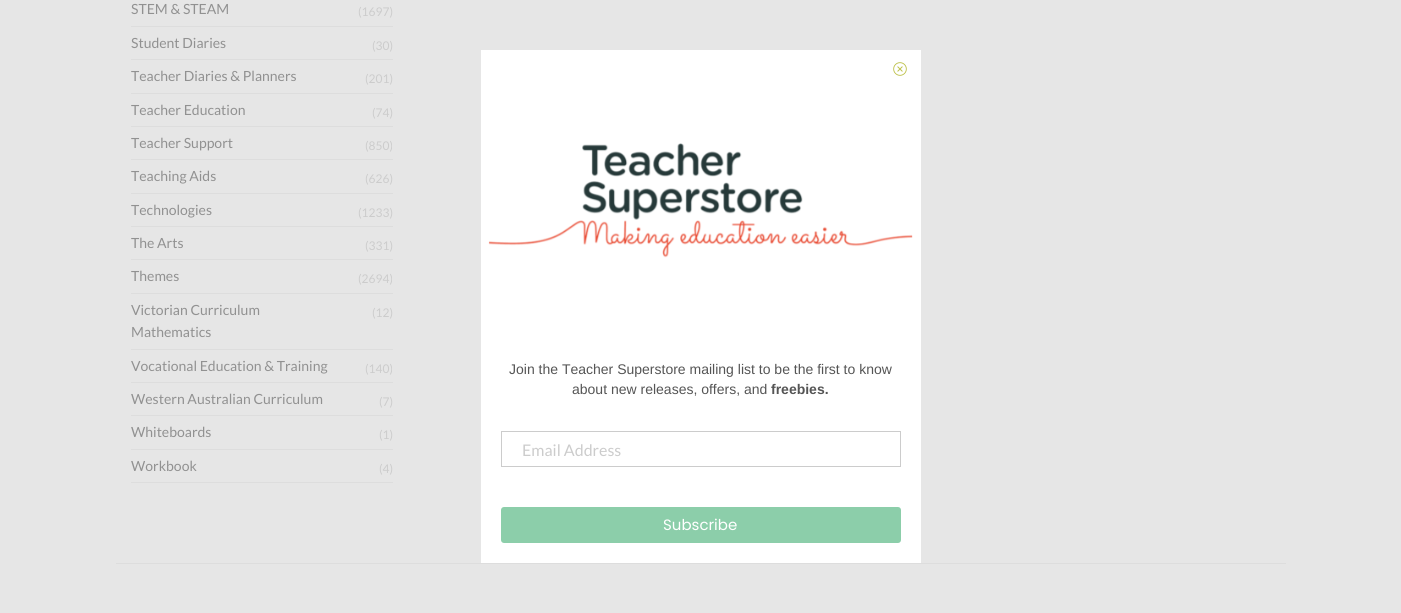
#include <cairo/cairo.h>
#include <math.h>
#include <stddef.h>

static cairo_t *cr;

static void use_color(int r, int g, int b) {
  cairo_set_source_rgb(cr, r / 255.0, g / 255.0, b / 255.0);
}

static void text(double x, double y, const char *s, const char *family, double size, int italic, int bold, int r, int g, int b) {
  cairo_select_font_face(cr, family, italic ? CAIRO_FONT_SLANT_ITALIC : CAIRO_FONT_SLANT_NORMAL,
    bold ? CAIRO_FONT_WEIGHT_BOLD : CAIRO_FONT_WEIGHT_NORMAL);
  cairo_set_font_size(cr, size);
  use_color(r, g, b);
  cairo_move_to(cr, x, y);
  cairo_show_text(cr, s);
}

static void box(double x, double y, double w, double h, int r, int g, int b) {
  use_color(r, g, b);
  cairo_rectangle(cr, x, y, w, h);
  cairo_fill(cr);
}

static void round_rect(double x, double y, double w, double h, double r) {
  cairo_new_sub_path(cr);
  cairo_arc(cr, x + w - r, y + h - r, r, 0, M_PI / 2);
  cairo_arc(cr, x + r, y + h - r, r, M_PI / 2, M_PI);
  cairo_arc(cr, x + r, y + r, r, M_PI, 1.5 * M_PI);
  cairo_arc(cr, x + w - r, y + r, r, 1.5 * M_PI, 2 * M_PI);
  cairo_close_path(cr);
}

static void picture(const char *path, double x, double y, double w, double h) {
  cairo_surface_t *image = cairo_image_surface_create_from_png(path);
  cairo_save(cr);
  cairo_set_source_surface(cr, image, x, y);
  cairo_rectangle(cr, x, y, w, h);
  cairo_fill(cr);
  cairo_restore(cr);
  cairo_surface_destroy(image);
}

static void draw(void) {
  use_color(230, 230, 230);
  cairo_paint(cr);
  box(131, 26, 262, 1, 221, 221, 221);
  box(131, 59, 262, 1, 221, 221, 221);
  box(131, 93, 262, 1, 221, 221, 221);
  box(131, 126, 262, 1, 221, 221, 221);
  box(131, 159, 262, 1, 221, 221, 221);
  box(131, 193, 262, 1, 221, 221, 221);
  box(131, 226, 262, 1, 221, 221, 221);
  box(131, 259, 262, 1, 221, 221, 221);
  box(131, 293, 262, 1, 221, 221, 221);
  box(131, 349, 262, 1, 221, 221, 221);
  box(131, 382, 262, 1, 221, 221, 221);
  box(131, 415, 262, 1, 221, 221, 221);
  box(131, 449, 262, 1, 221, 221, 221);
  box(131, 482, 262, 1, 221, 221, 221);
  box(481, 50, 440, 513, 255, 255, 255);
  picture("img_01.png", 893, 62, 14, 14);
  picture("img_02.png", 488, 143, 425, 115);
  cairo_rectangle(cr, 501.5, 431.5, 399, 35);
  use_color(204, 204, 204);
  cairo_set_line_width(cr, 1);
  cairo_stroke(cr);
  use_color(140, 206, 170);
  round_rect(501, 507, 400, 36, 3);
  cairo_fill(cr);
  box(116, 563, 1170, 1, 221, 221, 221);
  text(131, 14, "STEM & STEAM", "Lato", 14, 0, 0, 145, 145, 145);
  text(358, 16, "(1697)", "Lato", 12, 0, 0, 204, 204, 204);
  text(131, 48, "Student Diaries", "Lato", 14, 0, 0, 145, 145, 145);
  text(372, 50, "(30)", "Lato", 12, 0, 0, 204, 204, 204);
  text(131, 81, "Teacher Diaries & Planners", "Lato", 14, 0, 0, 145, 145, 145);
  text(365, 83, "(201)", "Lato", 12, 0, 0, 204, 204, 204);
  text(131, 115, "Teacher Education", "Lato", 14, 0, 0, 145, 145, 145);
  text(372, 117, "(74)", "Lato", 12, 0, 0, 204, 204, 204);
  text(131, 148, "Teacher Support", "Lato", 14, 0, 0, 145, 145, 145);
  text(365, 150, "(850)", "Lato", 12, 0, 0, 204, 204, 204);
  text(131, 181, "Teaching Aids", "Lato", 14, 0, 0, 145, 145, 145);
  text(365, 183, "(626)", "Lato", 12, 0, 0, 204, 204, 204);
  text(131, 215, "Technologies", "Lato", 14, 0, 0, 145, 145, 145);
  text(358, 217, "(1233)", "Lato", 12, 0, 0, 204, 204, 204);
  text(131, 248, "The Arts", "Lato", 14, 0, 0, 145, 145, 145);
  text(365, 250, "(331)", "Lato", 12, 0, 0, 204, 204, 204);
  text(131, 281, "Themes", "Lato", 14, 0, 0, 145, 145, 145);
  text(358, 283, "(2694)", "Lato", 12, 0, 0, 204, 204, 204);
  text(131, 315, "Victorian Curriculum", "Lato", 14, 0, 0, 145, 145, 145);
  text(131, 337, "Mathematics", "Lato", 14, 0, 0, 145, 145, 145);
  text(372, 317, "(12)", "Lato", 12, 0, 0, 204, 204, 204);
  text(131, 371, "Vocational Education & Training", "Lato", 14, 0, 0, 145, 145, 145);
  text(365, 373, "(140)", "Lato", 12, 0, 0, 204, 204, 204);
  text(131, 404, "Western Australian Curriculum", "Lato", 14, 0, 0, 145, 145, 145);
  text(379, 406, "(7)", "Lato", 12, 0, 0, 204, 204, 204);
  text(131, 437, "Whiteboards", "Lato", 14, 0, 0, 145, 145, 145);
  text(379, 439, "(1)", "Lato", 12, 0, 0, 204, 204, 204);
  text(131, 471, "Workbook", "Lato", 14, 0, 0, 145, 145, 145);
  text(379, 473, "(4)", "Lato", 12, 0, 0, 204, 204, 204);
  text(509, 374, "Join the Teacher Superstore mailing list to be the first to know", "Liberation Sans", 14, 0, 0, 85, 85, 85);
  text(572, 394, "about new releases, offers, and", "Liberation Sans", 14, 0, 0, 85, 85, 85);
  text(771, 394, "freebies.", "Liberation Sans", 14, 0, 1, 85, 85, 85);
  text(522, 456, "Email Address", "Lato", 16, 0, 0, 204, 204, 204);
  text(663, 530, "Subscribe", "Poppins", 15, 0, 0, 255, 255, 255);
}

int main(void) {
  cairo_surface_t *surface = cairo_image_surface_create(CAIRO_FORMAT_RGB24, 1401, 613);
  cr = cairo_create(surface);
  cairo_font_options_t *options = cairo_font_options_create();
  cairo_font_options_set_hint_metrics(options, CAIRO_HINT_METRICS_OFF);
  cairo_font_options_set_hint_style(options, CAIRO_HINT_STYLE_NONE);
  cairo_set_font_options(cr, options);
  cairo_set_miter_limit(cr, 4);
  draw();
  cairo_surface_write_to_png(surface, "out.png");
  cairo_font_options_destroy(options);
  cairo_destroy(cr);
  cairo_surface_destroy(surface);
  return 0;
}
